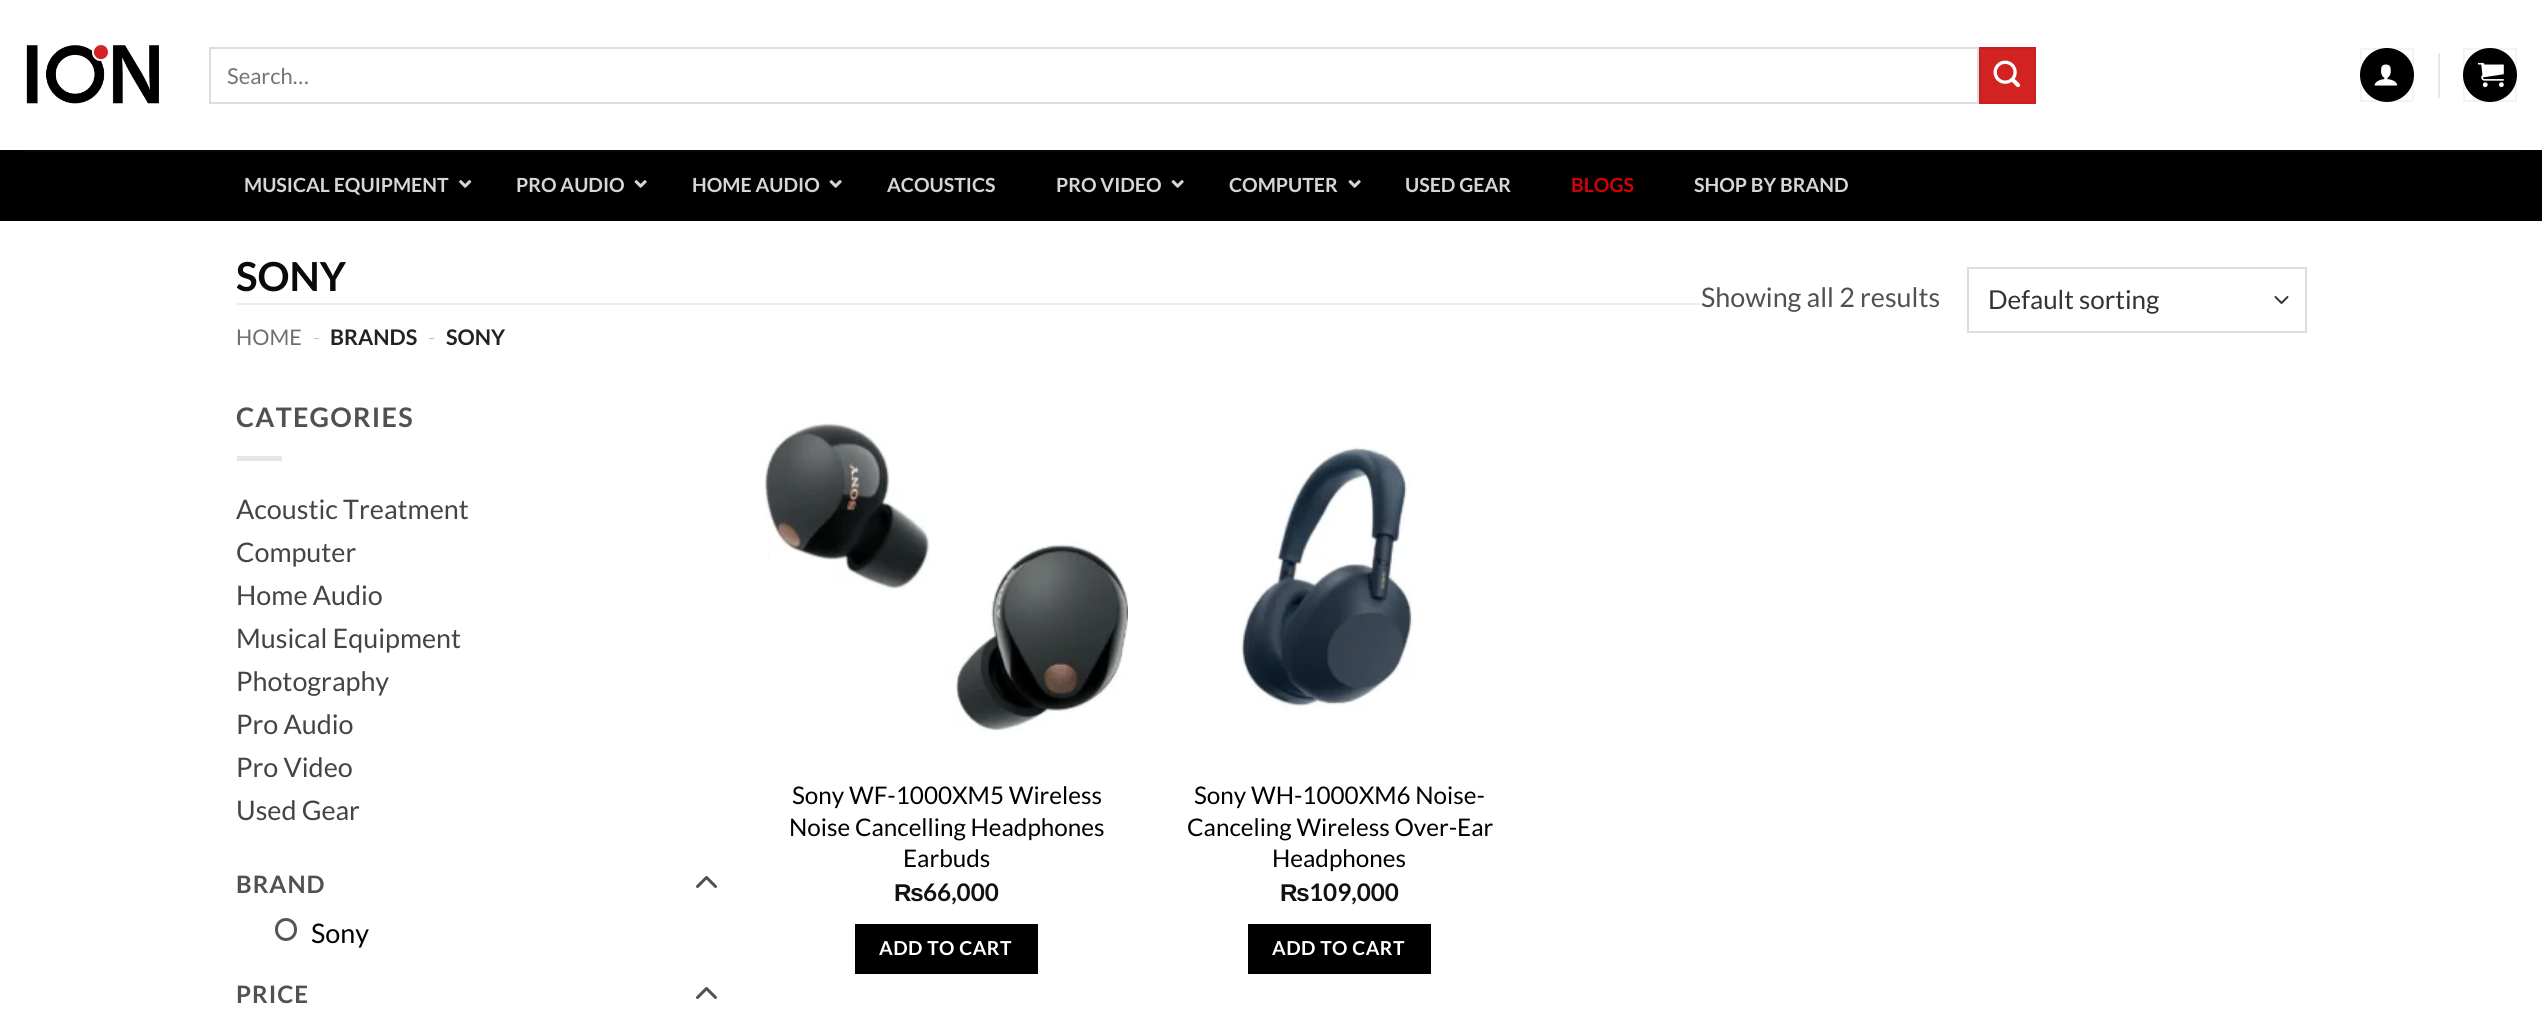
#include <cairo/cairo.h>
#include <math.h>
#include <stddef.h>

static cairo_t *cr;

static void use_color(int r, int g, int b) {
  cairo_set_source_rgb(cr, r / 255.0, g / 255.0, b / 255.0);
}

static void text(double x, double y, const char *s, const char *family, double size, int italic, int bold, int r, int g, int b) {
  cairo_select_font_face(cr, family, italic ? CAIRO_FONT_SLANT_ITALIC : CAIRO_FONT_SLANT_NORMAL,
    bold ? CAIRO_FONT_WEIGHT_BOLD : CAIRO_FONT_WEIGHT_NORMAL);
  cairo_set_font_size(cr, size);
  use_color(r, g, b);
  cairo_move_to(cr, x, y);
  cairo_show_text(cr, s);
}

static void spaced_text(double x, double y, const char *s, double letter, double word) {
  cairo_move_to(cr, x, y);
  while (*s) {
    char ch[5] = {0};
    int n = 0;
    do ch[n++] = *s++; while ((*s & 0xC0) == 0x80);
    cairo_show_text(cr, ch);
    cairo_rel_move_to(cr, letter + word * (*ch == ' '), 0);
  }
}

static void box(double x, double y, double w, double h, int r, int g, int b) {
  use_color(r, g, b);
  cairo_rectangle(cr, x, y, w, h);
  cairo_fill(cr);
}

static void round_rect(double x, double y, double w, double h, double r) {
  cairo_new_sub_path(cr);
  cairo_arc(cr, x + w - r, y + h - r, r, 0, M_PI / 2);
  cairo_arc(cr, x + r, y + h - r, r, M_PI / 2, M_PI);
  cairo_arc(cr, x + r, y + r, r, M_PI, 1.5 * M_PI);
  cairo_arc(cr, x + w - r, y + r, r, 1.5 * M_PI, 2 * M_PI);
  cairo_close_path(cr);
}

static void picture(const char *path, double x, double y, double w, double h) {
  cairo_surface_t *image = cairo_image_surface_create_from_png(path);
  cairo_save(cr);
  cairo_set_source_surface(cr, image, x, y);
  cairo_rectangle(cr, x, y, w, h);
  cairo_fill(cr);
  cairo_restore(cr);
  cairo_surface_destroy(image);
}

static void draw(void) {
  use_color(255, 255, 255);
  cairo_paint(cr);
  picture("img_01.png", 26, 45, 133, 59);
  cairo_rectangle(cr, 210, 48, 1768, 55);
  use_color(221, 221, 221);
  cairo_stroke(cr);
  use_color(210, 34, 34);
  cairo_rectangle(cr, 1980, 48, 55, 55);
  cairo_fill_preserve(cr);
  use_color(200, 32, 32);
  cairo_stroke(cr);
  picture("img_02.png", 1993, 60, 28, 28);
  use_color(0, 0, 0);
  cairo_arc(cr, 2387, 75, 27, 0, 2 * M_PI);
  cairo_fill(cr);
  cairo_rectangle(cr, 2361, 49, 52, 52);
  cairo_set_source_rgba(cr, 0, 0, 0, 0.05);
  cairo_stroke(cr);
  picture("img_03.png", 2374, 64, 24, 22);
  box(2438, 53, 2, 45, 230, 230, 230);
  use_color(0, 0, 0);
  cairo_arc(cr, 2490, 75, 27, 0, 2 * M_PI);
  cairo_fill(cr);
  cairo_rectangle(cr, 2464, 49, 52, 52);
  cairo_set_source_rgba(cr, 0, 0, 0, 0.05);
  cairo_stroke(cr);
  picture("img_04.png", 2478, 62, 26, 26);
  box(0, 150, 2542, 71, 0, 0, 0);
  box(23, 150, 2497, 2, 8, 8, 8);
  picture("img_05.png", 459, 180, 13, 8);
  picture("img_06.png", 634, 180, 13, 8);
  picture("img_06.png", 829, 180, 13, 8);
  picture("img_06.png", 1171, 180, 13, 8);
  picture("img_06.png", 1348, 180, 13, 8);
  box(237, 303, 1464, 2, 238, 238, 238);
  cairo_new_path(cr);
  cairo_move_to(cr, 2275.5, 297);
  cairo_line_to(cr, 2281.5, 303);
  cairo_line_to(cr, 2287.5, 297);
  use_color(51, 51, 51);
  cairo_set_line_cap(cr, CAIRO_LINE_CAP_ROUND);
  cairo_set_line_join(cr, CAIRO_LINE_JOIN_ROUND);
  cairo_stroke(cr);
  cairo_rectangle(cr, 1968, 268, 338, 64);
  use_color(221, 221, 221);
  cairo_set_line_cap(cr, CAIRO_LINE_CAP_BUTT);
  cairo_set_line_join(cr, CAIRO_LINE_JOIN_MITER);
  cairo_stroke(cr);
  box(237, 456, 45, 5, 230, 230, 230);
  picture("img_07.png", 696, 876, 21, 12);
  round_rect(276.5, 919.5, 19, 20, 9.5);
  use_color(85, 85, 85);
  cairo_set_line_width(cr, 3);
  cairo_stroke(cr);
  picture("img_07.png", 696, 987, 21, 12);
  picture("img_08.png", 765, 423, 363, 308);
  box(855, 924, 183, 50, 0, 0, 0);
  picture("img_09.png", 1241, 447, 173, 266);
  box(1248, 924, 183, 50, 0, 0, 0);
  text(227, 84, "Search…", "Lato", 22, 0, 0, 117, 117, 117);
  text(244, 192, "MUSICAL EQUIPMENT", "Lato", 19.5, 0, 1, 214, 214, 214);
  text(516, 192, "PRO AUDIO", "Lato", 19.5, 0, 1, 214, 214, 214);
  text(692, 192, "HOME AUDIO", "Lato", 19.5, 0, 1, 214, 214, 214);
  text(887, 192, "ACOUSTICS", "Lato", 19.5, 0, 1, 214, 214, 214);
  text(1056, 192, "PRO VIDEO", "Lato", 19.5, 0, 1, 214, 214, 214);
  text(1229, 192, "COMPUTER", "Lato", 19.5, 0, 1, 214, 214, 214);
  text(1405, 192, "USED GEAR", "Lato", 19.5, 0, 1, 214, 214, 214);
  text(1571, 192, "BLOGS", "Lato", 19.5, 0, 1, 210, 2, 2);
  text(1694, 192, "SHOP BY BRAND", "Lato", 19.5, 0, 1, 214, 214, 214);
  text(236, 291, "SONY", "Lato", 40, 0, 1, 10, 10, 10);
  text(236, 345, "HOME", "Lato", 21.5, 0, 0, 110, 110, 110);
  text(313, 345, "-", "Lato Light", 21.5, 0, 0, 178, 178, 178);
  text(330, 345, "BRANDS", "Lato", 21.5, 0, 1, 34, 34, 34);
  text(428, 345, "-", "Lato Light", 21.5, 0, 0, 178, 178, 178);
  text(446, 345, "SONY", "Lato", 21.5, 0, 1, 34, 34, 34);
  text(1701, 307, "Showing all 2 results", "Lato", 26.9, 0, 0, 81, 81, 81);
  text(1988, 309, "Default sorting", "Lato", 26, 0, 0, 51, 51, 51);
  cairo_select_font_face(cr, "Lato", CAIRO_FONT_SLANT_NORMAL, CAIRO_FONT_WEIGHT_BOLD);
  cairo_set_font_size(cr, 26.9);
  use_color(81, 81, 81);
  spaced_text(236, 427, "CATEGORIES", 1.25, 0);
  text(236, 519, "Acoustic Treatment", "Lato", 26.9, 0, 0, 68, 68, 68);
  text(236, 562, "Computer", "Lato", 26.9, 0, 0, 68, 68, 68);
  text(236, 605, "Home Audio", "Lato", 26.9, 0, 0, 68, 68, 68);
  text(236, 648, "Musical Equipment", "Lato", 26.9, 0, 0, 68, 68, 68);
  text(236, 691, "Photography", "Lato", 26.9, 0, 0, 68, 68, 68);
  text(236, 734, "Pro Audio", "Lato", 26.9, 0, 0, 68, 68, 68);
  text(236, 777, "Pro Video", "Lato", 26.9, 0, 0, 68, 68, 68);
  text(236, 820, "Used Gear", "Lato", 26.9, 0, 0, 68, 68, 68);
  cairo_select_font_face(cr, "Lato", CAIRO_FONT_SLANT_NORMAL, CAIRO_FONT_WEIGHT_BOLD);
  cairo_set_font_size(cr, 24);
  use_color(81, 81, 81);
  spaced_text(236, 893, "BRAND", 1, 0);
  text(311, 943, "Sony", "Lato", 26.9, 0, 0, 0, 0, 0);
  cairo_select_font_face(cr, "Lato", CAIRO_FONT_SLANT_NORMAL, CAIRO_FONT_WEIGHT_BOLD);
  cairo_set_font_size(cr, 24);
  use_color(81, 81, 81);
  spaced_text(236, 1003, "PRICE", 1, 0);
  text(792, 804, "Sony WF-1000XM5 Wireless", "Lato", 24.25, 0, 0, 0, 0, 0);
  text(789, 836, "Noise Cancelling Headphones", "Lato", 24.25, 0, 0, 0, 0, 0);
  text(903, 867, "Earbuds", "Lato", 24.25, 0, 0, 0, 0, 0);
  text(894, 901, "₨", "Liberation Sans", 24.25, 0, 1, 17, 17, 17);
  text(923, 901, "66,000", "Lato", 24.25, 0, 1, 17, 17, 17);
  cairo_set_font_size(cr, 19.25);
  use_color(255, 255, 255);
  spaced_text(879, 955, "ADD TO CART", 0.5, 0);
  text(1194, 804, "Sony WH-1000XM6 Noise-", "Lato", 24.25, 0, 0, 0, 0, 0);
  text(1187, 836, "Canceling Wireless Over-Ear", "Lato", 24.25, 0, 0, 0, 0, 0);
  text(1272, 867, "Headphones", "Lato", 24.25, 0, 0, 0, 0, 0);
  text(1280, 901, "₨", "Liberation Sans", 24.25, 0, 1, 17, 17, 17);
  text(1309, 901, "109,000", "Lato", 24.25, 0, 1, 17, 17, 17);
  cairo_set_font_size(cr, 19.25);
  use_color(255, 255, 255);
  spaced_text(1272, 955, "ADD TO CART", 0.5, 0);
}

int main(void) {
  cairo_surface_t *surface = cairo_image_surface_create(CAIRO_FORMAT_RGB24, 2542, 1016);
  cr = cairo_create(surface);
  cairo_font_options_t *options = cairo_font_options_create();
  cairo_font_options_set_hint_metrics(options, CAIRO_HINT_METRICS_OFF);
  cairo_font_options_set_hint_style(options, CAIRO_HINT_STYLE_NONE);
  cairo_set_font_options(cr, options);
  cairo_set_miter_limit(cr, 4);
  draw();
  cairo_surface_write_to_png(surface, "out.png");
  cairo_font_options_destroy(options);
  cairo_destroy(cr);
  cairo_surface_destroy(surface);
  return 0;
}
